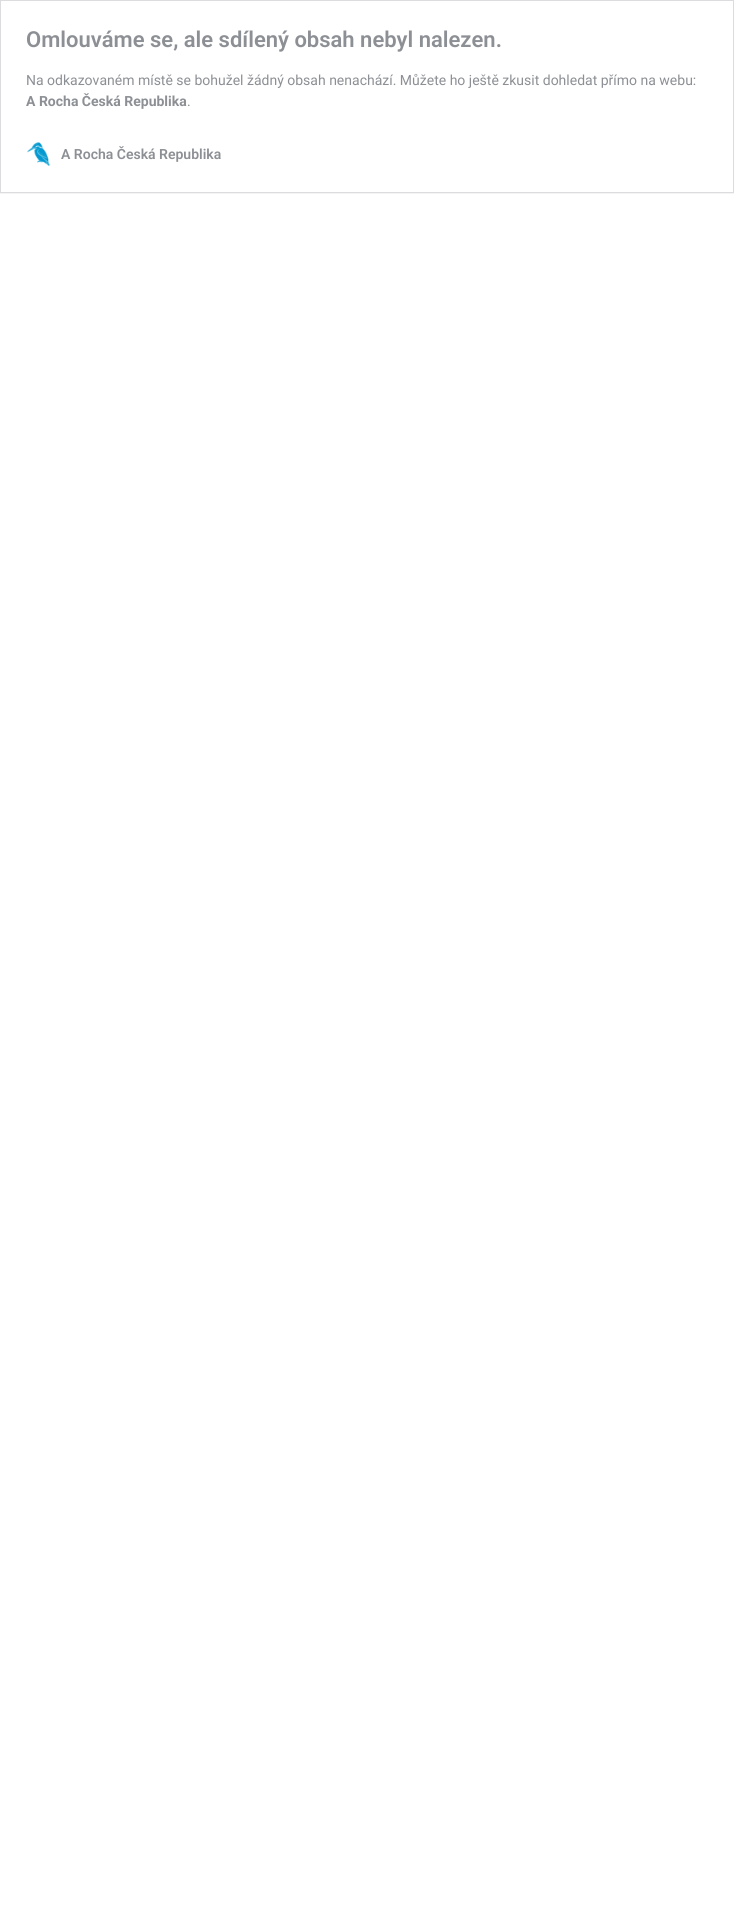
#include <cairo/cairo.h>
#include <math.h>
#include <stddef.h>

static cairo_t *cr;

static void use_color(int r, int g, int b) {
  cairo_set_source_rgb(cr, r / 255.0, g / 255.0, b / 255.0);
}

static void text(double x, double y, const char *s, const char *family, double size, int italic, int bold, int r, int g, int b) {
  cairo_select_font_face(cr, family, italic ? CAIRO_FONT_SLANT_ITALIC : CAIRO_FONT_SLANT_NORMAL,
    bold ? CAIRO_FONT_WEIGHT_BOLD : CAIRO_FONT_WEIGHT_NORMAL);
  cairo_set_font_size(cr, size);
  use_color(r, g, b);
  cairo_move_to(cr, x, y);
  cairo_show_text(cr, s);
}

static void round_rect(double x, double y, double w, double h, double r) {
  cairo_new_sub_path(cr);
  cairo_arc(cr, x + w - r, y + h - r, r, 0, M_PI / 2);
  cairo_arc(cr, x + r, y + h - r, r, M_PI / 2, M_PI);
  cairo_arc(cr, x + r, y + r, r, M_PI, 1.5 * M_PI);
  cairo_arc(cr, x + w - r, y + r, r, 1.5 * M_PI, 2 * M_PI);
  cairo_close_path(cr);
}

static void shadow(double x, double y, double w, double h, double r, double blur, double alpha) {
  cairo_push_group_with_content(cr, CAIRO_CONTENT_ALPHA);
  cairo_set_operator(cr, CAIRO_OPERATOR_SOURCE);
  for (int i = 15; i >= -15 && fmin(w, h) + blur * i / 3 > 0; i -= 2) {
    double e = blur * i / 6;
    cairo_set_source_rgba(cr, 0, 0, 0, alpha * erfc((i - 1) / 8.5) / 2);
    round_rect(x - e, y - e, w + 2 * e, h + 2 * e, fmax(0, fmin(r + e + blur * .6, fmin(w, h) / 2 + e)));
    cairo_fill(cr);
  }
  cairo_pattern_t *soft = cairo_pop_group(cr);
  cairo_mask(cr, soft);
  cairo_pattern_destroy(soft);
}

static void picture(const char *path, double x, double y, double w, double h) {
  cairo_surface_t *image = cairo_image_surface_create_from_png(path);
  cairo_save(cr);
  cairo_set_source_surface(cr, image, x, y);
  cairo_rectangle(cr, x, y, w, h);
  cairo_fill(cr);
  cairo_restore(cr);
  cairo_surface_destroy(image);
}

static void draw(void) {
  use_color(255, 255, 255);
  cairo_paint(cr);
  cairo_save(cr);
  cairo_rectangle(cr, 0, 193, 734, 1);
  cairo_clip(cr);
  use_color(0, 0, 0);
  shadow(0, 1, 734, 193, 0, 0.5, 0.05);
  cairo_restore(cr);
  cairo_rectangle(cr, 0.5, 0.5, 733, 192);
  use_color(220, 220, 222);
  cairo_set_line_width(cr, 1);
  cairo_stroke(cr);
  picture("img_01.png", 27, 142, 24, 24);
  text(26, 47, "Omlouváme se, ale sdílený obsah nebyl nalezen.", "Roboto SemiBold", 22, 0, 0, 140, 143, 148);
  text(26, 85, "Na odkazovaném místě se bohužel žádný obsah nenachází. Můžete ho ještě zkusit dohledat přímo na webu:", "Roboto", 14, 0, 0, 140, 143, 148);
  text(26, 106, "A Rocha Česká Republika", "Roboto", 14, 0, 1, 140, 143, 148);
  text(187, 106, ".", "Roboto", 14, 0, 0, 140, 143, 148);
  text(61, 159, "A Rocha Česká Republika", "Roboto SemiBold", 14, 0, 0, 140, 143, 148);
}

int main(void) {
  cairo_surface_t *surface = cairo_image_surface_create(CAIRO_FORMAT_RGB24, 734, 1908);
  cr = cairo_create(surface);
  cairo_font_options_t *options = cairo_font_options_create();
  cairo_font_options_set_hint_metrics(options, CAIRO_HINT_METRICS_OFF);
  cairo_font_options_set_hint_style(options, CAIRO_HINT_STYLE_NONE);
  cairo_set_font_options(cr, options);
  cairo_set_miter_limit(cr, 4);
  draw();
  cairo_surface_write_to_png(surface, "out.png");
  cairo_font_options_destroy(options);
  cairo_destroy(cr);
  cairo_surface_destroy(surface);
  return 0;
}
